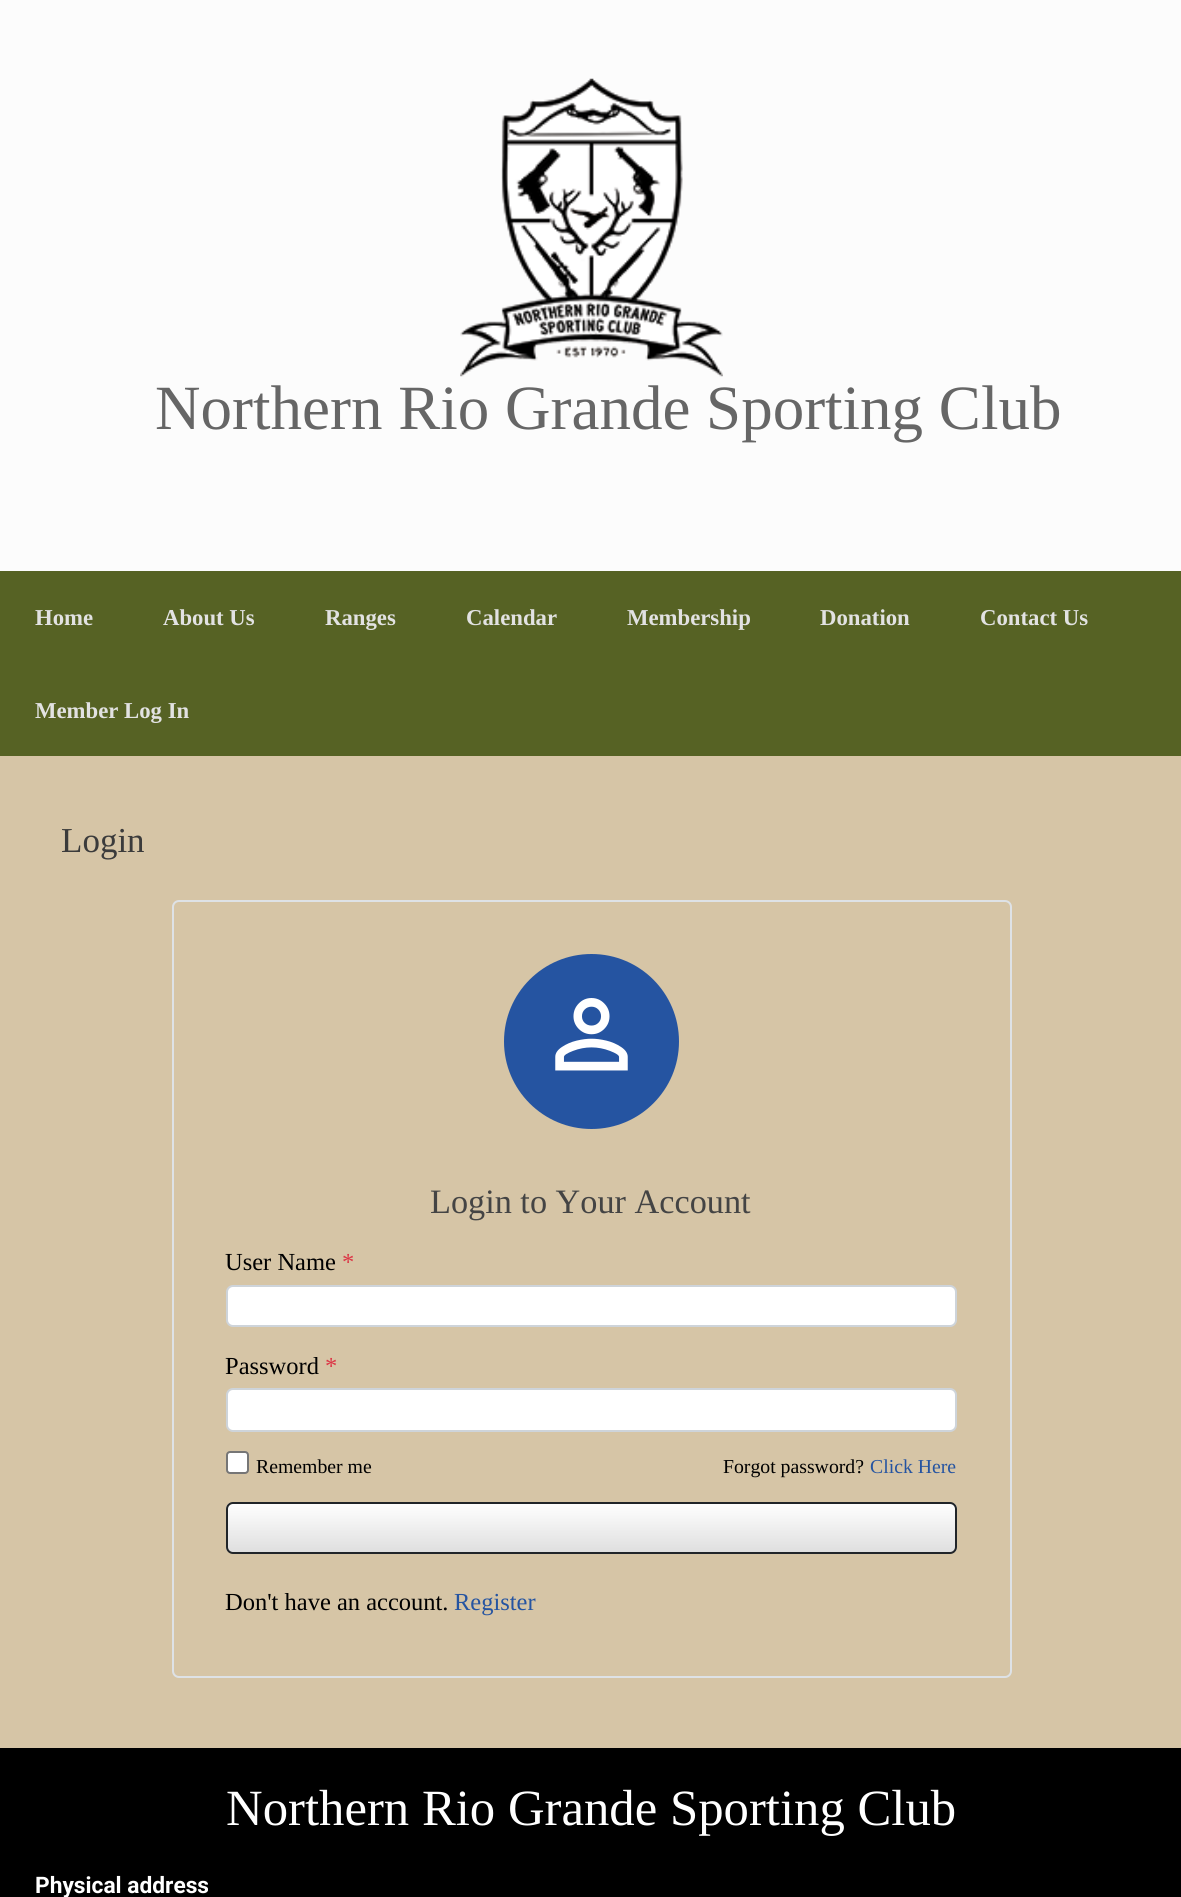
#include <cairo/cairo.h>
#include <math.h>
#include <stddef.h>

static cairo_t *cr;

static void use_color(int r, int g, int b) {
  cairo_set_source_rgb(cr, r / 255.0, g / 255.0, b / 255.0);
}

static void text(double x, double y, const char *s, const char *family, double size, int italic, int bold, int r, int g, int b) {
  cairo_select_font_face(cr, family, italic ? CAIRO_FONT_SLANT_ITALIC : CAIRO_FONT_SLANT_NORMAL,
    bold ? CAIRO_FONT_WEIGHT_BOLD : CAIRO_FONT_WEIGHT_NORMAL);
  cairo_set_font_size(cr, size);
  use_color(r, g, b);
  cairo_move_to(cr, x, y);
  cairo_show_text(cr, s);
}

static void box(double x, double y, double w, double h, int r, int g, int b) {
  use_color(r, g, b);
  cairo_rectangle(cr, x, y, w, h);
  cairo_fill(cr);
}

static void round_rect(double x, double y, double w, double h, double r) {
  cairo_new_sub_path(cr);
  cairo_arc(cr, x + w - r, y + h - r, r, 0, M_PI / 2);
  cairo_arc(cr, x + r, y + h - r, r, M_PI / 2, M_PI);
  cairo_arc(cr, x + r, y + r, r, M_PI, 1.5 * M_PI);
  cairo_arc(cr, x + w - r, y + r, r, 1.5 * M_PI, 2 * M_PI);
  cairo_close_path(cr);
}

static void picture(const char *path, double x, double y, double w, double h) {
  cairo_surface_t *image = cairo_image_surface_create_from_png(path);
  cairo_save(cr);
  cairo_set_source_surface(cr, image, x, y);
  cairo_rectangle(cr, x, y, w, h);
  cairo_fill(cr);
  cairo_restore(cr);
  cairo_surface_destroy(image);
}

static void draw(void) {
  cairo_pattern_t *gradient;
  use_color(214, 197, 166);
  cairo_paint(cr);
  box(0, 0, 1181, 571, 252, 252, 252);
  picture("img_01.png", 460, 78, 263, 299);
  box(0, 571, 1181, 185, 86, 98, 36);
  round_rect(173, 901, 838, 776, 6);
  use_color(222, 226, 230);
  cairo_stroke(cr);
  use_color(37, 84, 161);
  cairo_arc(cr, 591.5, 1041.5, 87.5, 0, 2 * M_PI);
  cairo_fill(cr);
  picture("img_02.png", 555, 998, 73, 73);
  use_color(255, 255, 255);
  round_rect(227, 1286, 729, 40, 6);
  cairo_fill_preserve(cr);
  use_color(206, 212, 218);
  cairo_stroke(cr);
  use_color(255, 255, 255);
  round_rect(227, 1389, 729, 42, 6);
  cairo_fill_preserve(cr);
  use_color(206, 212, 218);
  cairo_stroke(cr);
  use_color(255, 255, 255);
  round_rect(227, 1452, 21, 21, 3);
  cairo_fill_preserve(cr);
  use_color(118, 118, 118);
  cairo_stroke(cr);
  cairo_save(cr);
  round_rect(226, 1502, 731, 52, 7);
  cairo_clip(cr);
  gradient = cairo_pattern_create_linear(228, 1552, 228, 1503);
  cairo_pattern_add_color_stop_rgba(gradient, 0, 0.875, 0.875, 0.875, 1);
  cairo_pattern_add_color_stop_rgba(gradient, 1, 1, 1, 1, 1);
  cairo_set_source(cr, gradient);
  cairo_pattern_destroy(gradient);
  cairo_rectangle(cr, 226, 1503, 731, 49);
  cairo_fill(cr);
  cairo_restore(cr);
  round_rect(227, 1503, 729, 50, 6);
  use_color(33, 37, 41);
  cairo_stroke(cr);
  box(0, 1748, 1181, 149, 0, 0, 0);
  text(155, 429, "Northern Rio Grande Sporting Club", "Liberation Serif", 63, 0, 0, 102, 102, 102);
  text(35, 625, "Home", "Liberation Serif", 22.75, 0, 1, 226, 226, 226);
  text(163, 625, "About Us", "Liberation Serif", 22.75, 0, 1, 226, 226, 226);
  text(325, 625, "Ranges", "Liberation Serif", 22.75, 0, 1, 226, 226, 226);
  text(466, 625, "Calendar", "Liberation Serif", 22.75, 0, 1, 226, 226, 226);
  text(627, 625, "Membership", "Liberation Serif", 22.75, 0, 1, 226, 226, 226);
  text(820, 625, "Donation", "Liberation Serif", 22.75, 0, 1, 226, 226, 226);
  text(980, 625, "Contact Us", "Liberation Serif", 22.75, 0, 1, 226, 226, 226);
  text(35, 718, "Member Log In", "Liberation Serif", 22.75, 0, 1, 226, 226, 226);
  text(61, 852, "Login", "Liberation Serif", 35, 0, 0, 59, 59, 59);
  text(430, 1213, "Login to Your Account", "Liberation Serif", 34.25, 0, 0, 68, 68, 68);
  text(225, 1270, "User Name", "Liberation Serif", 24.5, 0, 0, 0, 0, 0);
  text(342, 1270, "*", "Liberation Serif", 24.5, 0, 0, 220, 53, 69);
  text(225, 1374, "Password", "Liberation Serif", 24.5, 0, 0, 0, 0, 0);
  text(325, 1374, "*", "Liberation Serif", 24.5, 0, 0, 220, 53, 69);
  text(256, 1473, "Remember me", "Liberation Serif", 19.75, 0, 0, 0, 0, 0);
  text(723, 1473, "Forgot password?", "Liberation Serif", 19.75, 0, 0, 0, 0, 0);
  text(870, 1473, "Click Here", "Liberation Serif", 19.75, 0, 0, 37, 84, 161);
  text(225, 1610, "Don't have an account.", "Liberation Serif", 24.5, 0, 0, 0, 0, 0);
  text(454, 1610, "Register", "Liberation Serif", 24.5, 0, 0, 37, 84, 161);
  text(226, 1825, "Northern Rio Grande Sporting Club", "Liberation Serif", 50.75, 0, 0, 255, 255, 255);
  text(35, 1893, "Physical address", "Roboto", 22.75, 0, 1, 255, 255, 255);
}

int main(void) {
  cairo_surface_t *surface = cairo_image_surface_create(CAIRO_FORMAT_RGB24, 1181, 1897);
  cr = cairo_create(surface);
  cairo_font_options_t *options = cairo_font_options_create();
  cairo_font_options_set_hint_metrics(options, CAIRO_HINT_METRICS_OFF);
  cairo_font_options_set_hint_style(options, CAIRO_HINT_STYLE_NONE);
  cairo_set_font_options(cr, options);
  cairo_set_miter_limit(cr, 4);
  draw();
  cairo_surface_write_to_png(surface, "out.png");
  cairo_font_options_destroy(options);
  cairo_destroy(cr);
  cairo_surface_destroy(surface);
  return 0;
}
